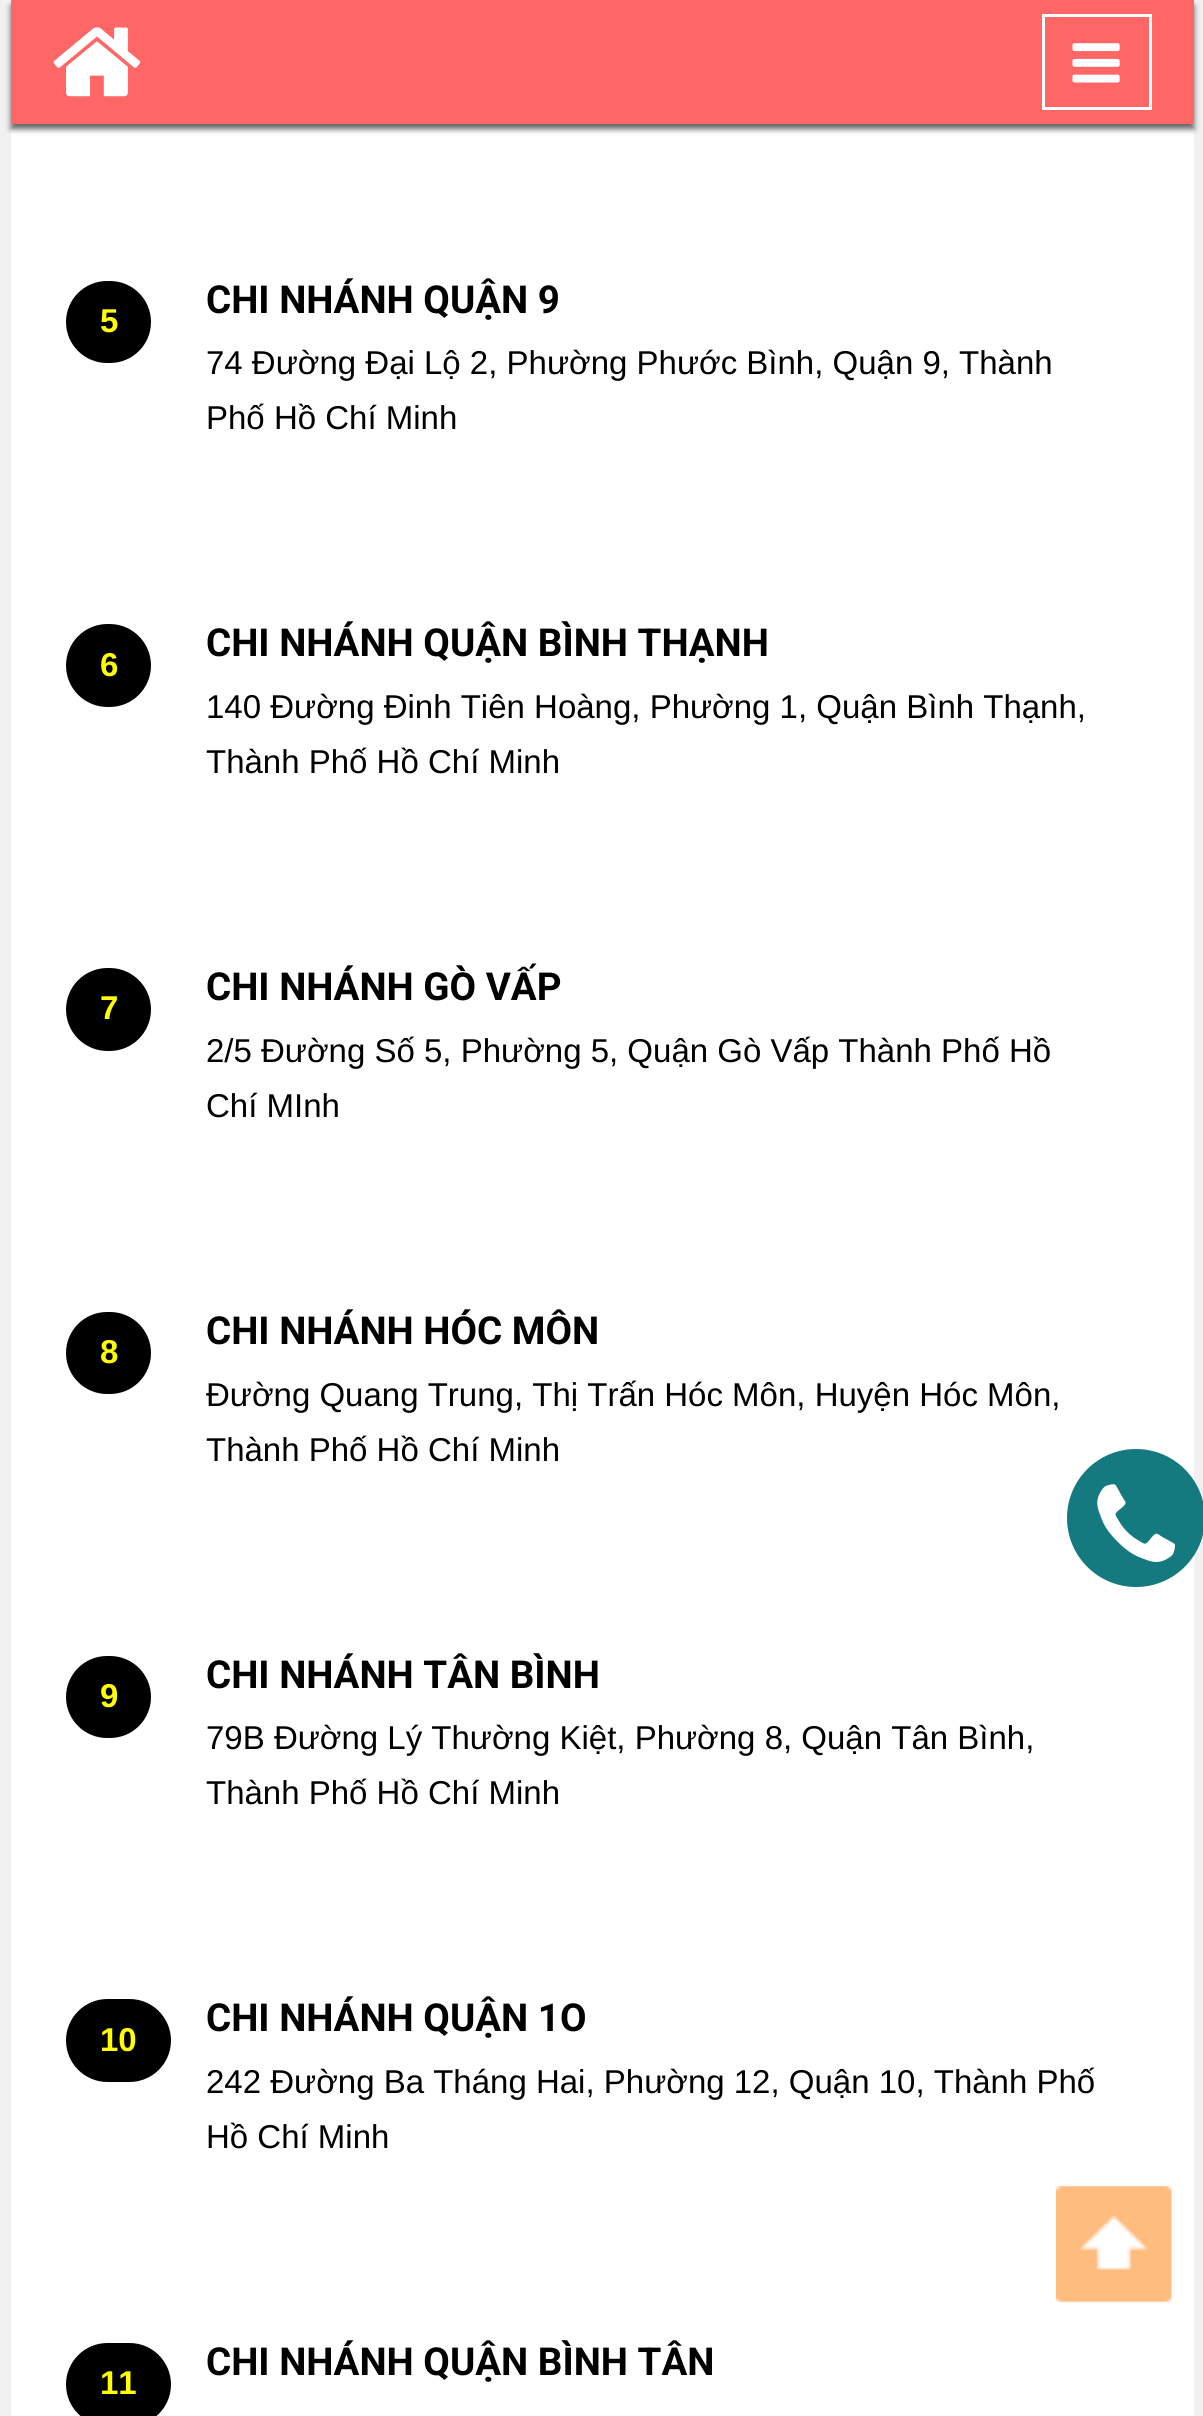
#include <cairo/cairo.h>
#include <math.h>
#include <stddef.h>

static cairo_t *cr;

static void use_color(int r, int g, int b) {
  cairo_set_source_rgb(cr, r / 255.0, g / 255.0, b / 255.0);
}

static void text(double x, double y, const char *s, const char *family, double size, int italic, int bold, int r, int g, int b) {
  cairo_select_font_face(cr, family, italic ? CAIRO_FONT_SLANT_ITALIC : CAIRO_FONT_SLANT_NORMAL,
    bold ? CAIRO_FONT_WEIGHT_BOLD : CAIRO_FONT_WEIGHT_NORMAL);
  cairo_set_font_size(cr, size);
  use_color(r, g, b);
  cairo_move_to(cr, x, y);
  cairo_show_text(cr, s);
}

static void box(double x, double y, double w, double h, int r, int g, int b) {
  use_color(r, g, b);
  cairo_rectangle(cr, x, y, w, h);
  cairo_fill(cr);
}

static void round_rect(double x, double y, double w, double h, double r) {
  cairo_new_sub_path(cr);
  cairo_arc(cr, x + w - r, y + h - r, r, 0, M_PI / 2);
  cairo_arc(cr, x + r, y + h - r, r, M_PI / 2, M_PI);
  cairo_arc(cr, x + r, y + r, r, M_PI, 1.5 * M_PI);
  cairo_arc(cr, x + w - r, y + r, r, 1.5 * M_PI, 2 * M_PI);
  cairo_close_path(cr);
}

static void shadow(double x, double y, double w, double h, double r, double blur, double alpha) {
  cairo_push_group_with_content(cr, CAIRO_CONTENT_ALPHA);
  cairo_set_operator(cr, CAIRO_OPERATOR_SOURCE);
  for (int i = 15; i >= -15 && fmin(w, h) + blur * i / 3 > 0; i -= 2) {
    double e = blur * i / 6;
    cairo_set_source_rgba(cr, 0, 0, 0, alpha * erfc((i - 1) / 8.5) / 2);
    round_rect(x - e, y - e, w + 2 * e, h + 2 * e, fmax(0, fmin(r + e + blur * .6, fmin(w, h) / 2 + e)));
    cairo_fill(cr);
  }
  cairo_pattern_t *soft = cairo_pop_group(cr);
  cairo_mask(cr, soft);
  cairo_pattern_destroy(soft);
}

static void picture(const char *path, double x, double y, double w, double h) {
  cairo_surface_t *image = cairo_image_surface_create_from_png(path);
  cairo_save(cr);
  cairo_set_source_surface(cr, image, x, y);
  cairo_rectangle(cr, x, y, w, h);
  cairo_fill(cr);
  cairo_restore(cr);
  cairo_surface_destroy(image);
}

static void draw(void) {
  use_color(241, 241, 241);
  cairo_paint(cr);
  box(11, 124, 1183, 2292, 255, 255, 255);
  use_color(97, 97, 97);
  shadow(11, 6, 1183, 123, 0, 3, 1);
  box(11, 0, 1183, 124, 255, 102, 102);
  picture("img_01.png", 53, 27, 88, 70);
  cairo_rectangle(cr, 1043.5, 15.5, 107, 93);
  use_color(255, 255, 255);
  cairo_set_line_width(cr, 3);
  cairo_stroke(cr);
  picture("img_02.png", 1072, 43, 48, 40);
  use_color(0, 0, 0);
  round_rect(66, 281, 85, 82, 41);
  cairo_fill(cr);
  round_rect(66, 624, 85, 83, 41.5);
  cairo_fill(cr);
  round_rect(66, 968, 85, 83, 41.5);
  cairo_fill(cr);
  round_rect(66, 1312, 85, 82, 41);
  cairo_fill(cr);
  round_rect(66, 1656, 85, 82, 41);
  cairo_fill(cr);
  round_rect(66, 1999, 105, 83, 41.5);
  cairo_fill(cr);
  round_rect(66, 2343, 105, 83, 41.5);
  cairo_fill(cr);
  use_color(21, 122, 127);
  cairo_arc(cr, 1136, 1518, 69, 0, 2 * M_PI);
  cairo_fill(cr);
  picture("img_03.png", 1097, 1484, 78, 78);
  picture("img_04.png", 1056, 2186, 116, 117);
  text(100, 332, "5", "Liberation Sans", 33, 0, 1, 255, 255, 0);
  text(206, 313, "CHI NHÁNH QUẬN 9", "Roboto", 38.5, 0, 1, 0, 0, 0);
  text(206, 374, "74 Đường Đại Lộ 2, Phường Phước Bình, Quận 9, Thành", "Liberation Sans", 33, 0, 0, 0, 0, 0);
  text(206, 429, "Phố Hồ Chí Minh", "Liberation Sans", 33, 0, 0, 0, 0, 0);
  text(100, 676, "6", "Liberation Sans", 33, 0, 1, 255, 255, 0);
  text(206, 656, "CHI NHÁNH QUẬN BÌNH THẠNH", "Roboto", 38.5, 0, 1, 0, 0, 0);
  text(206, 718, "140 Đường Đinh Tiên Hoàng, Phường 1, Quận Bình Thạnh,", "Liberation Sans", 33, 0, 0, 0, 0, 0);
  text(206, 773, "Thành Phố Hồ Chí Minh", "Liberation Sans", 33, 0, 0, 0, 0, 0);
  text(100, 1019, "7", "Liberation Sans", 33, 0, 1, 255, 255, 0);
  text(206, 1000, "CHI NHÁNH GÒ VẤP", "Roboto", 38.5, 0, 1, 0, 0, 0);
  text(206, 1062, "2/5 Đường Số 5, Phường 5, Quận Gò Vấp Thành Phố Hồ", "Liberation Sans", 33, 0, 0, 0, 0, 0);
  text(206, 1117, "Chí MInh", "Liberation Sans", 33, 0, 0, 0, 0, 0);
  text(100, 1363, "8", "Liberation Sans", 33, 0, 1, 255, 255, 0);
  text(206, 1344, "CHI NHÁNH HÓC MÔN", "Roboto", 38.5, 0, 1, 0, 0, 0);
  text(206, 1406, "Đường Quang Trung, Thị Trấn Hóc Môn, Huyện Hóc Môn,", "Liberation Sans", 33, 0, 0, 0, 0, 0);
  text(206, 1461, "Thành Phố Hồ Chí Minh", "Liberation Sans", 33, 0, 0, 0, 0, 0);
  text(100, 1707, "9", "Liberation Sans", 33, 0, 1, 255, 255, 0);
  text(206, 1688, "CHI NHÁNH TÂN BÌNH", "Roboto", 38.5, 0, 1, 0, 0, 0);
  text(206, 1749, "79B Đường Lý Thường Kiệt, Phường 8, Quận Tân Bình,", "Liberation Sans", 33, 0, 0, 0, 0, 0);
  text(206, 1804, "Thành Phố Hồ Chí Minh", "Liberation Sans", 33, 0, 0, 0, 0, 0);
  text(100, 2051, "10", "Liberation Sans", 33, 0, 1, 255, 255, 0);
  text(206, 2031, "CHI NHÁNH QUẬN 1O", "Roboto", 38.5, 0, 1, 0, 0, 0);
  text(206, 2093, "242 Đường Ba Tháng Hai, Phường 12, Quận 10, Thành Phố", "Liberation Sans", 33, 0, 0, 0, 0, 0);
  text(206, 2148, "Hồ Chí Minh", "Liberation Sans", 33, 0, 0, 0, 0, 0);
  text(100, 2394, "11", "Liberation Sans", 33, 0, 1, 255, 255, 0);
  text(206, 2375, "CHI NHÁNH QUẬN BÌNH TÂN", "Roboto", 38.5, 0, 1, 0, 0, 0);
}

int main(void) {
  cairo_surface_t *surface = cairo_image_surface_create(CAIRO_FORMAT_RGB24, 1203, 2416);
  cr = cairo_create(surface);
  cairo_font_options_t *options = cairo_font_options_create();
  cairo_font_options_set_hint_metrics(options, CAIRO_HINT_METRICS_OFF);
  cairo_font_options_set_hint_style(options, CAIRO_HINT_STYLE_NONE);
  cairo_set_font_options(cr, options);
  cairo_set_miter_limit(cr, 4);
  draw();
  cairo_surface_write_to_png(surface, "out.png");
  cairo_font_options_destroy(options);
  cairo_destroy(cr);
  cairo_surface_destroy(surface);
  return 0;
}
